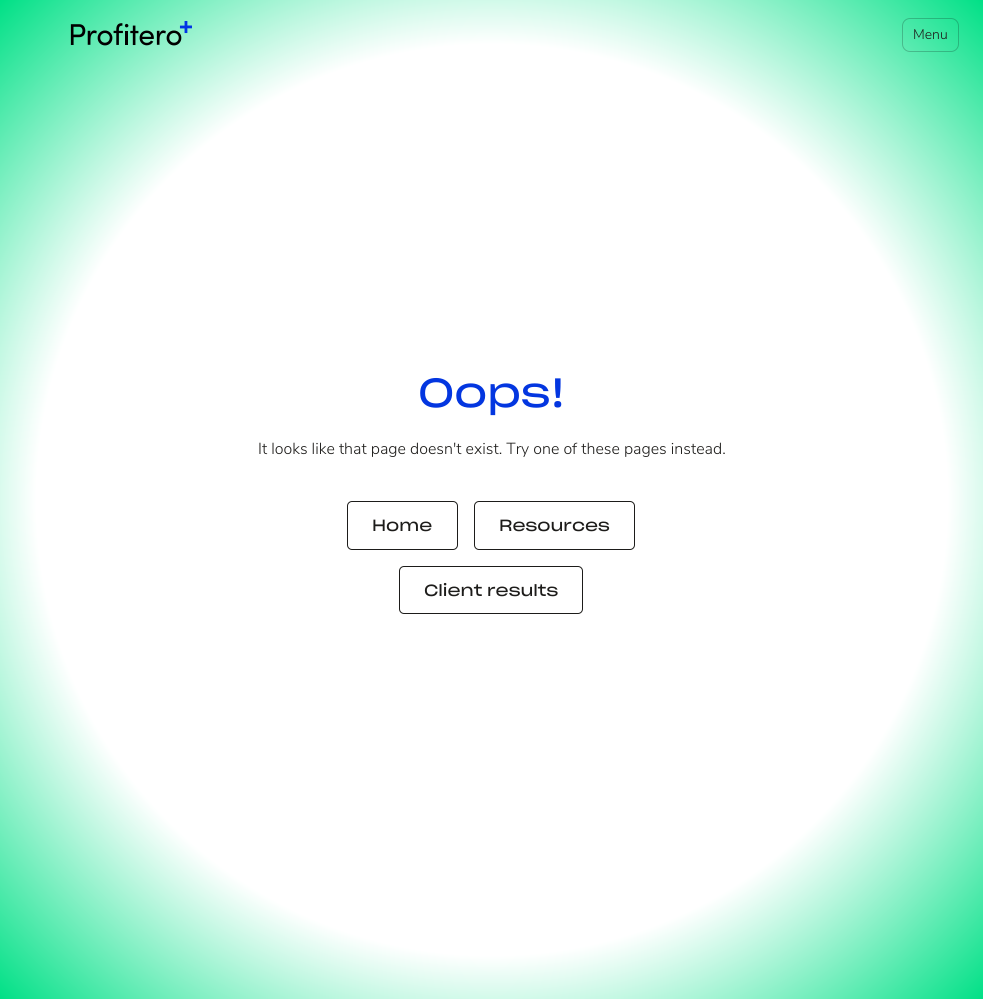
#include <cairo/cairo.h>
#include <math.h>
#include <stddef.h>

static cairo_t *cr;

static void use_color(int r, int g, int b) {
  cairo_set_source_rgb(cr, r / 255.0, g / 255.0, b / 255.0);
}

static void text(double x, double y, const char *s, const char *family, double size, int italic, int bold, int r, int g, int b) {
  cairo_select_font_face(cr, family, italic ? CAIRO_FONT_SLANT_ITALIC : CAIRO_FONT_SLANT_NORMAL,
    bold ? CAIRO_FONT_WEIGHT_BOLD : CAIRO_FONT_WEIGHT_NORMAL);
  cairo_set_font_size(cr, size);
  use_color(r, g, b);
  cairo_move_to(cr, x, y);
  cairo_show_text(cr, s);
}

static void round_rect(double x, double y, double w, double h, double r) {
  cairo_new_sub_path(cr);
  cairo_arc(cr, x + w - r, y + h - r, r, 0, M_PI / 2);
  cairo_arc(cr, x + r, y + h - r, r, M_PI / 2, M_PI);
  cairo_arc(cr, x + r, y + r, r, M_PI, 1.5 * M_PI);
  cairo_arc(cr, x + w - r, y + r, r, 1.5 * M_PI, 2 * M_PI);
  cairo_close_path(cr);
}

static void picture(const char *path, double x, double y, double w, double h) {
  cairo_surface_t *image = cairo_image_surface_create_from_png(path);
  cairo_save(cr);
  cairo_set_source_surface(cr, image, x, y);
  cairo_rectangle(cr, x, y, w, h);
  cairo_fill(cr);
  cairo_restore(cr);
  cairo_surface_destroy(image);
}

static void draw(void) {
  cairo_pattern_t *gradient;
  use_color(255, 255, 255);
  cairo_paint(cr);
  gradient = cairo_pattern_create_radial(492, 500, 0, 492, 500, 701);
  cairo_pattern_add_color_stop_rgba(gradient, 0.65, 1, 1, 1, 1);
  cairo_pattern_add_color_stop_rgba(gradient, 1, 0, 0.878, 0.525, 1);
  cairo_set_source(cr, gradient);
  cairo_pattern_destroy(gradient);
  cairo_rectangle(cr, 0, 0, 983, 999);
  cairo_fill(cr);
  picture("img_01.png", 70, 21, 122, 25);
  round_rect(902.5, 18.5, 56, 33, 7.5);
  cairo_set_source_rgba(cr, 0, 0, 0, 0.21);
  cairo_set_line_width(cr, 1);
  cairo_stroke(cr);
  round_rect(347.5, 501.5, 110, 48, 4.5);
  use_color(29, 28, 26);
  cairo_stroke(cr);
  round_rect(474.5, 501.5, 160, 48, 4.5);
  cairo_stroke(cr);
  round_rect(399.5, 566.5, 183, 47, 4.5);
  cairo_stroke(cr);
  text(913, 39, "Menu", "Nunito Sans Light", 14, 0, 0, 29, 28, 26);
  text(418, 407, "Oops!", "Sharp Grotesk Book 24", 40, 0, 0, 3, 54, 224);
  text(258, 454, "It looks like that page doesn't exist. Try one of these pages instead.", "Nunito Sans Light", 16, 0, 0, 29, 28, 26);
  text(372, 531, "Home", "Sharp Grotesk Book 24", 16, 0, 0, 29, 28, 26);
  text(499, 531, "Resources", "Sharp Grotesk Book 24", 16, 0, 0, 29, 28, 26);
  text(424, 596, "Client results", "Sharp Grotesk Book 24", 16, 0, 0, 29, 28, 26);
}

int main(void) {
  cairo_surface_t *surface = cairo_image_surface_create(CAIRO_FORMAT_RGB24, 983, 999);
  cr = cairo_create(surface);
  cairo_font_options_t *options = cairo_font_options_create();
  cairo_font_options_set_hint_metrics(options, CAIRO_HINT_METRICS_OFF);
  cairo_font_options_set_hint_style(options, CAIRO_HINT_STYLE_NONE);
  cairo_set_font_options(cr, options);
  cairo_set_miter_limit(cr, 4);
  draw();
  cairo_surface_write_to_png(surface, "out.png");
  cairo_font_options_destroy(options);
  cairo_destroy(cr);
  cairo_surface_destroy(surface);
  return 0;
}
